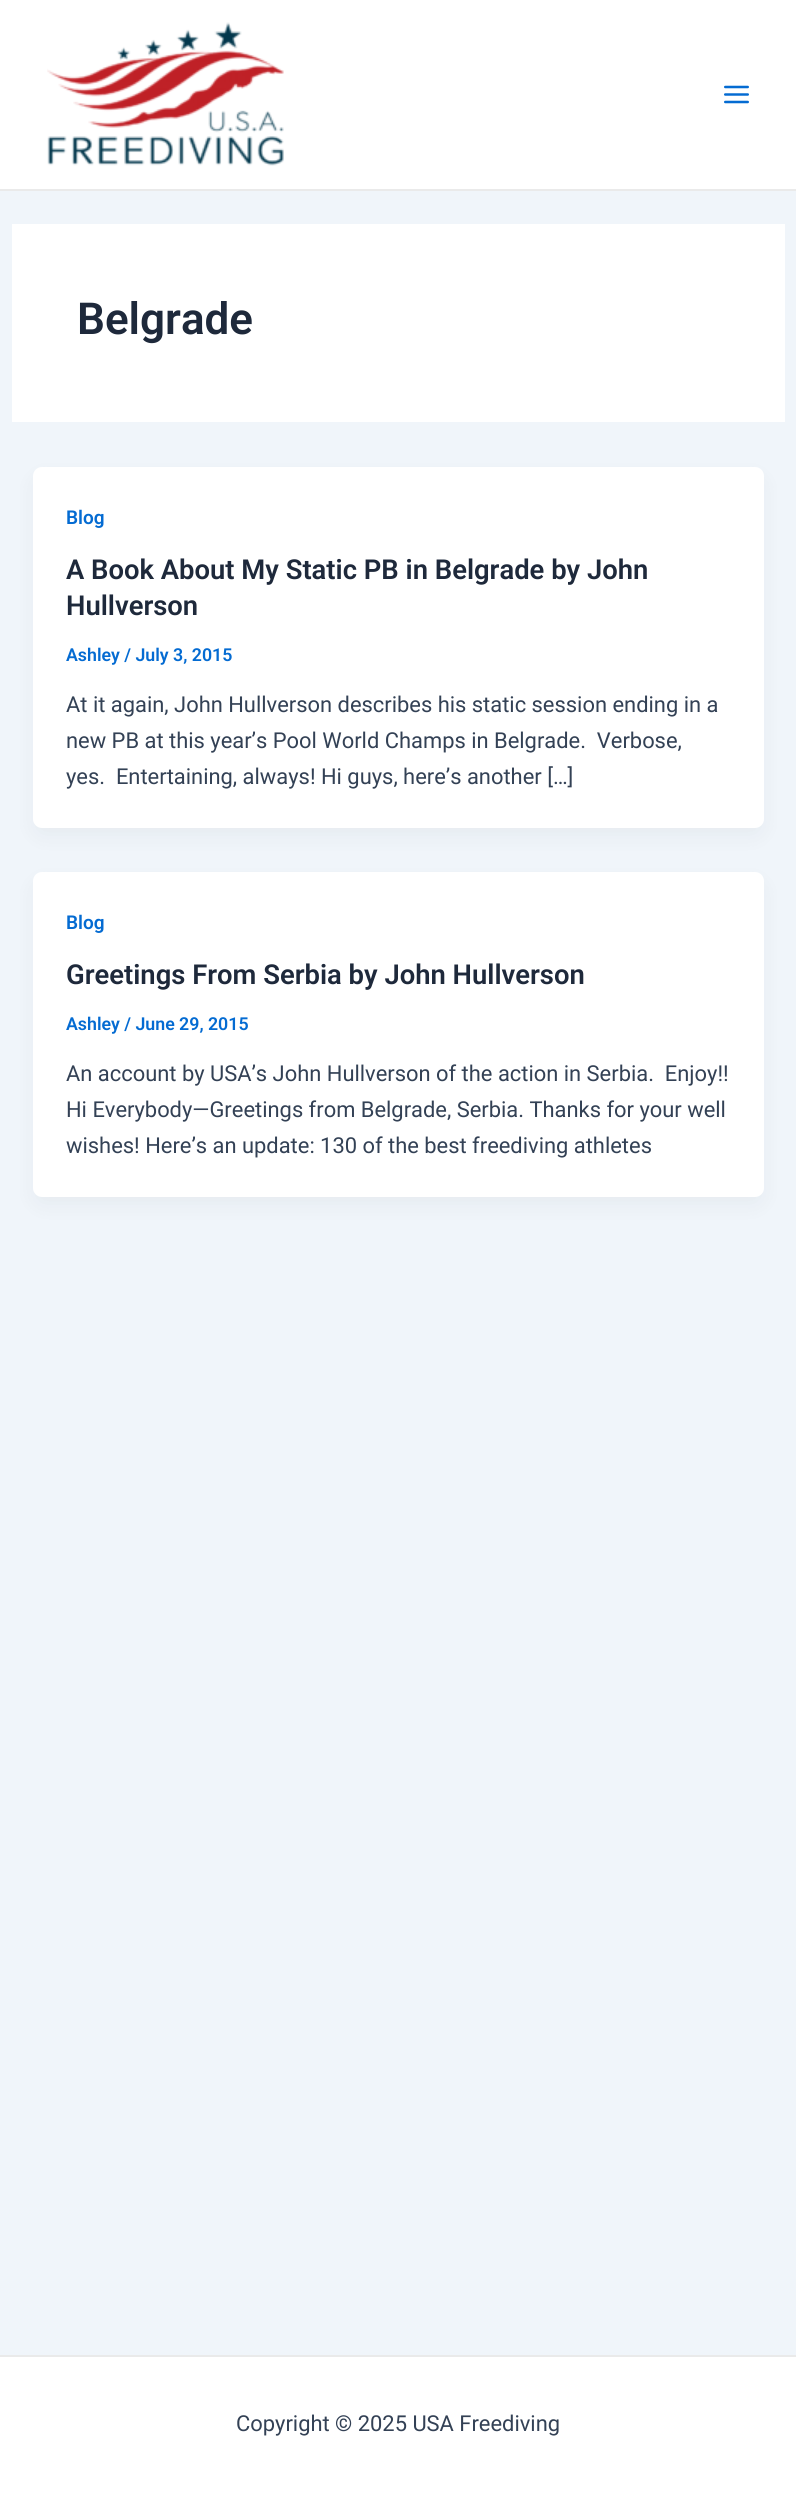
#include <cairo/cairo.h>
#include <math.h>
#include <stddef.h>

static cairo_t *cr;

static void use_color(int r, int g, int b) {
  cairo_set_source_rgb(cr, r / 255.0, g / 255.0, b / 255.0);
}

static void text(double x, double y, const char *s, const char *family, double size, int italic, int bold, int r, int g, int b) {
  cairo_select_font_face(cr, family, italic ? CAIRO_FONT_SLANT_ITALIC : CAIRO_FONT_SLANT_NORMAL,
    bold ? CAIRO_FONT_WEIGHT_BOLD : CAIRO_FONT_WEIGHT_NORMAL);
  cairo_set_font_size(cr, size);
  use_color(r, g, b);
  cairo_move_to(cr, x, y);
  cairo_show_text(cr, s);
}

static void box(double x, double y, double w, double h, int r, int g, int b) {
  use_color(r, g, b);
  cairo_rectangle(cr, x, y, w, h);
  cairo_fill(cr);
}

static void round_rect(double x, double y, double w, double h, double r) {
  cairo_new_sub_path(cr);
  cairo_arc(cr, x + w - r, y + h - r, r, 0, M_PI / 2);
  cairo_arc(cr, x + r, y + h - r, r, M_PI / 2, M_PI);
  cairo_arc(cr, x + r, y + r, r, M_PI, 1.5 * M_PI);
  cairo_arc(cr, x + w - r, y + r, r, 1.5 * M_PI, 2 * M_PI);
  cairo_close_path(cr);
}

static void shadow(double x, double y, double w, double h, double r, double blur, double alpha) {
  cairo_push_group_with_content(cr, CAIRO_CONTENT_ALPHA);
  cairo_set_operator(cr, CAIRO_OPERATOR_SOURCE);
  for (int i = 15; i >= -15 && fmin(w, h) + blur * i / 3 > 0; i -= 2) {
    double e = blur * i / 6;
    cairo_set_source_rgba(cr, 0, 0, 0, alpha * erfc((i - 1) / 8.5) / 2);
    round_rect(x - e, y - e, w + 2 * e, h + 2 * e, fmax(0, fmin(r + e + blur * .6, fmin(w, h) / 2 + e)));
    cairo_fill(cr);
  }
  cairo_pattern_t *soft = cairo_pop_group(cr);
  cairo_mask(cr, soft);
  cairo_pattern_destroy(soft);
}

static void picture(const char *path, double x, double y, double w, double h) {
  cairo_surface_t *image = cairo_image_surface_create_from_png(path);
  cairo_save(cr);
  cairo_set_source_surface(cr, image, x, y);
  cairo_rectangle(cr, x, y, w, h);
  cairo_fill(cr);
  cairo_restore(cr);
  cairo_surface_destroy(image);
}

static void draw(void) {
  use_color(240, 245, 250);
  cairo_paint(cr);
  box(0, 0, 796, 189, 255, 255, 255);
  box(0, 189, 796, 2, 234, 234, 234);
  picture("img_01.png", 47, 22, 237, 144);
  picture("img_02.png", 724, 85, 25, 19);
  box(12, 224, 773, 198, 255, 255, 255);
  use_color(16, 24, 40);
  shadow(36, 479, 725, 355, 6, 11, 0.05);
  use_color(255, 255, 255);
  round_rect(33, 467, 731, 361, 9);
  cairo_fill(cr);
  use_color(16, 24, 40);
  shadow(36, 884, 725, 319, 6, 11, 0.05);
  use_color(255, 255, 255);
  round_rect(33, 872, 731, 325, 9);
  cairo_fill(cr);
  box(0, 2357, 796, 149, 255, 255, 255);
  box(0, 2355, 796, 2, 234, 234, 234);
  text(77, 334, "Belgrade", "Roboto SemiBold", 44, 0, 0, 30, 41, 59);
  text(66, 524, "Blog", "Roboto SemiBold", 19, 0, 0, 4, 107, 210);
  text(66, 579, "A Book About My Static PB in Belgrade by John", "Roboto SemiBold", 27.4, 0, 0, 30, 41, 59);
  text(66, 615, "Hullverson", "Roboto SemiBold", 27.4, 0, 0, 30, 41, 59);
  text(66, 661, "Ashley / July 3, 2015", "Roboto SemiBold", 17.75, 0, 0, 4, 107, 210);
  text(66, 712, "At it again, John Hullverson describes his static session ending in a", "Roboto", 21.9, 0, 0, 51, 65, 85);
  text(66, 748, "new PB at this year’s Pool World Champs in Belgrade.  Verbose,", "Roboto", 21.9, 0, 0, 51, 65, 85);
  text(66, 784, "yes.  Entertaining, always! Hi guys, here’s another […]", "Roboto", 21.9, 0, 0, 51, 65, 85);
  text(66, 929, "Blog", "Roboto SemiBold", 19, 0, 0, 4, 107, 210);
  text(66, 984, "Greetings From Serbia by John Hullverson", "Roboto SemiBold", 27.4, 0, 0, 30, 41, 59);
  text(66, 1030, "Ashley / June 29, 2015", "Roboto SemiBold", 17.75, 0, 0, 4, 107, 210);
  text(66, 1081, "An account by USA’s John Hullverson of the action in Serbia.  Enjoy!!", "Roboto", 21.9, 0, 0, 51, 65, 85);
  text(66, 1117, "Hi Everybody—Greetings from Belgrade, Serbia. Thanks for your well", "Roboto", 21.9, 0, 0, 51, 65, 85);
  text(66, 1153, "wishes! Here’s an update: 130 of the best freediving athletes", "Roboto", 21.9, 0, 0, 51, 65, 85);
  text(236, 2431, "Copyright © 2025 USA Freediving", "Roboto", 21.9, 0, 0, 51, 65, 85);
}

int main(void) {
  cairo_surface_t *surface = cairo_image_surface_create(CAIRO_FORMAT_RGB24, 796, 2506);
  cr = cairo_create(surface);
  cairo_font_options_t *options = cairo_font_options_create();
  cairo_font_options_set_hint_metrics(options, CAIRO_HINT_METRICS_OFF);
  cairo_font_options_set_hint_style(options, CAIRO_HINT_STYLE_NONE);
  cairo_set_font_options(cr, options);
  cairo_set_miter_limit(cr, 4);
  draw();
  cairo_surface_write_to_png(surface, "out.png");
  cairo_font_options_destroy(options);
  cairo_destroy(cr);
  cairo_surface_destroy(surface);
  return 0;
}
